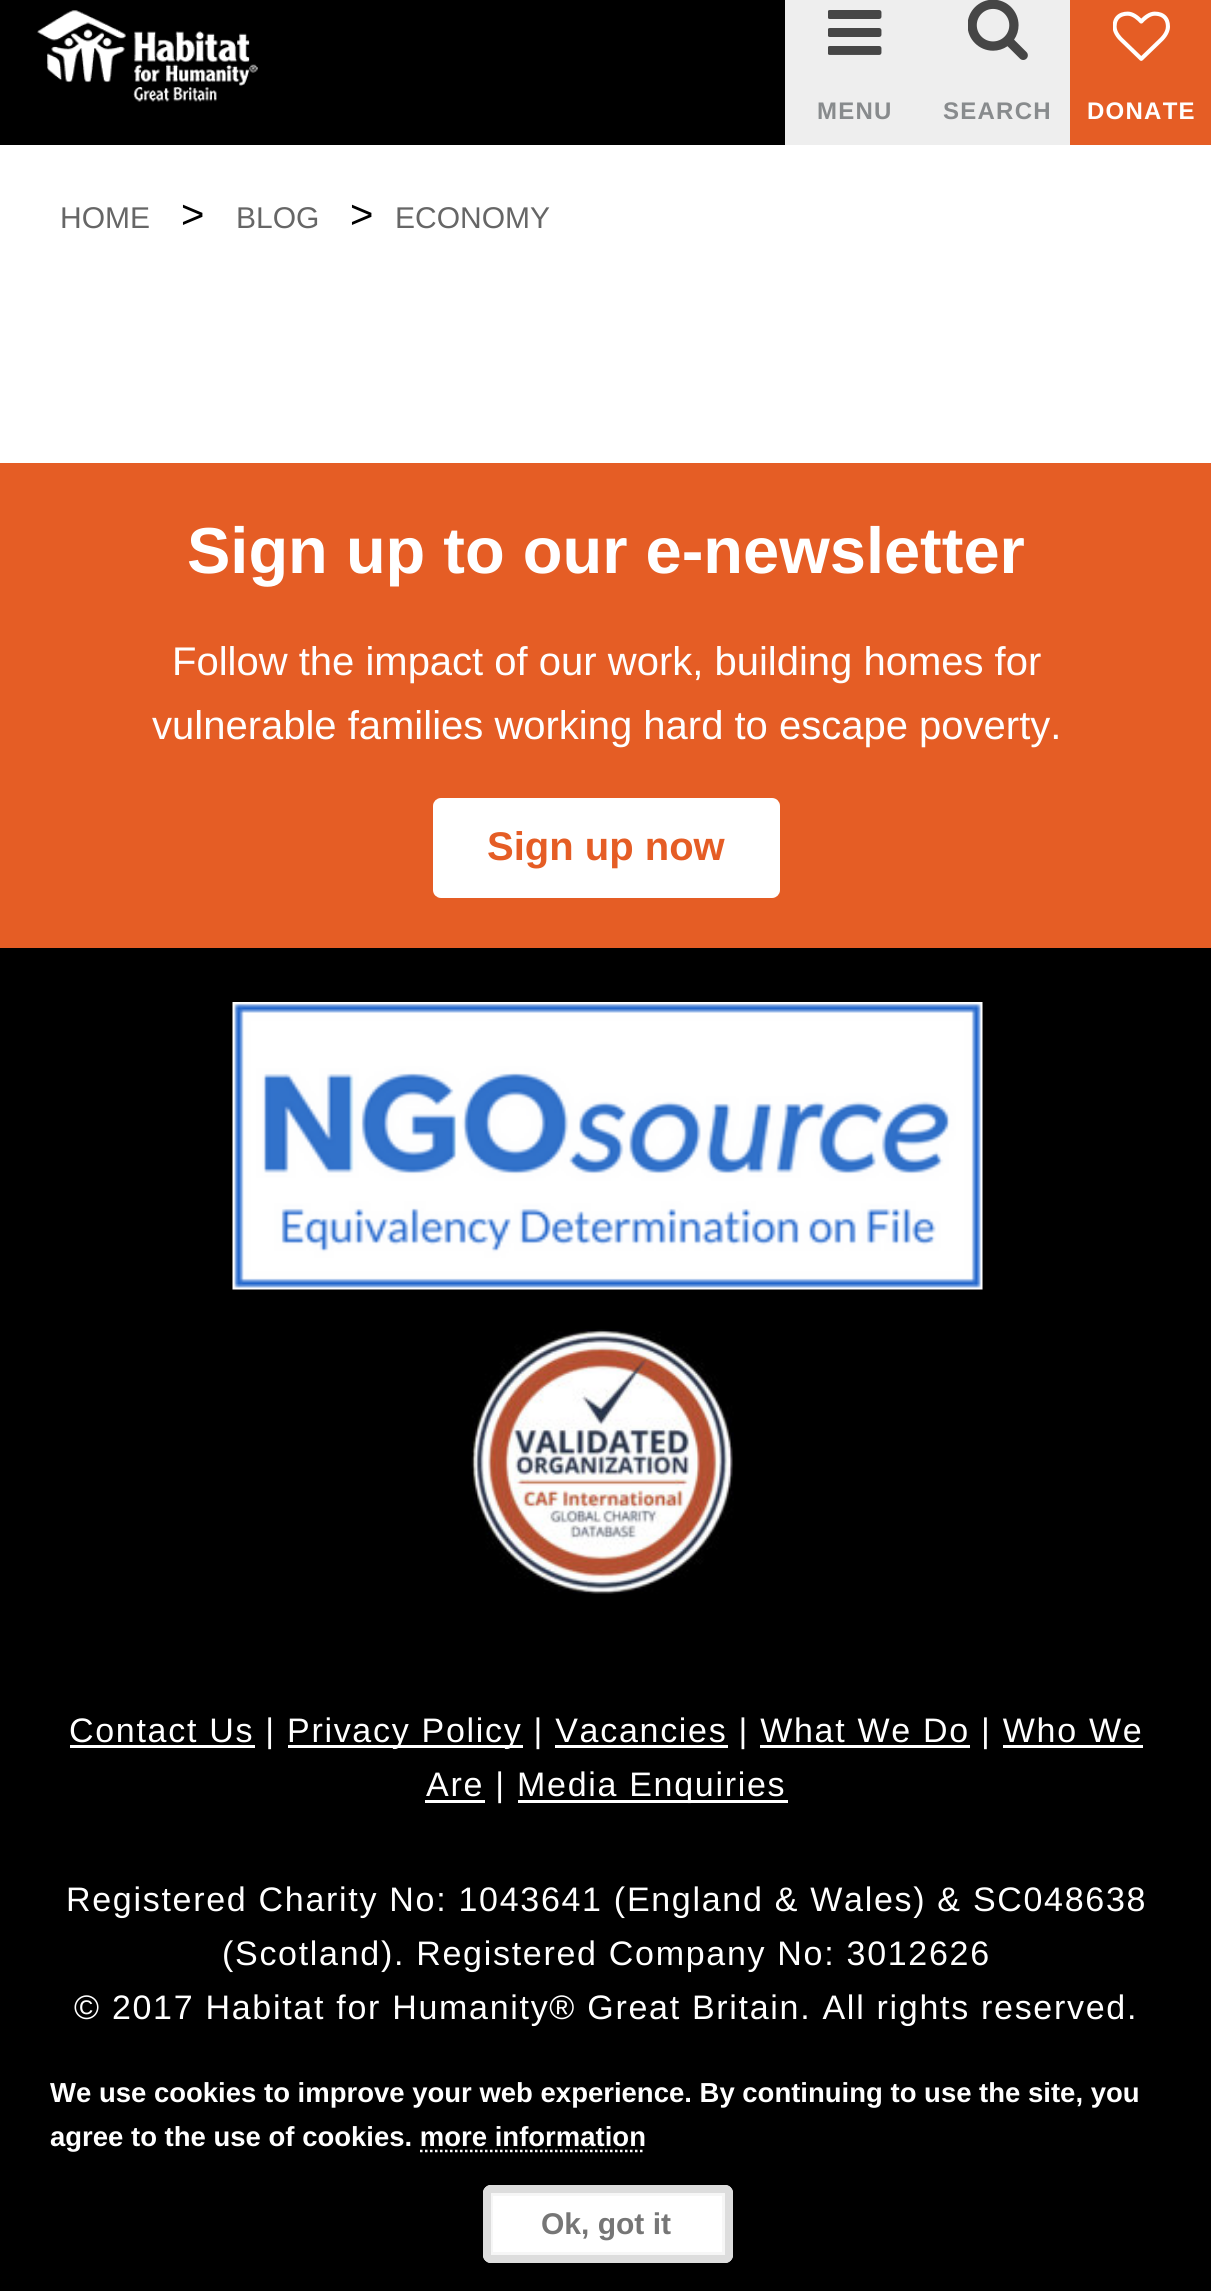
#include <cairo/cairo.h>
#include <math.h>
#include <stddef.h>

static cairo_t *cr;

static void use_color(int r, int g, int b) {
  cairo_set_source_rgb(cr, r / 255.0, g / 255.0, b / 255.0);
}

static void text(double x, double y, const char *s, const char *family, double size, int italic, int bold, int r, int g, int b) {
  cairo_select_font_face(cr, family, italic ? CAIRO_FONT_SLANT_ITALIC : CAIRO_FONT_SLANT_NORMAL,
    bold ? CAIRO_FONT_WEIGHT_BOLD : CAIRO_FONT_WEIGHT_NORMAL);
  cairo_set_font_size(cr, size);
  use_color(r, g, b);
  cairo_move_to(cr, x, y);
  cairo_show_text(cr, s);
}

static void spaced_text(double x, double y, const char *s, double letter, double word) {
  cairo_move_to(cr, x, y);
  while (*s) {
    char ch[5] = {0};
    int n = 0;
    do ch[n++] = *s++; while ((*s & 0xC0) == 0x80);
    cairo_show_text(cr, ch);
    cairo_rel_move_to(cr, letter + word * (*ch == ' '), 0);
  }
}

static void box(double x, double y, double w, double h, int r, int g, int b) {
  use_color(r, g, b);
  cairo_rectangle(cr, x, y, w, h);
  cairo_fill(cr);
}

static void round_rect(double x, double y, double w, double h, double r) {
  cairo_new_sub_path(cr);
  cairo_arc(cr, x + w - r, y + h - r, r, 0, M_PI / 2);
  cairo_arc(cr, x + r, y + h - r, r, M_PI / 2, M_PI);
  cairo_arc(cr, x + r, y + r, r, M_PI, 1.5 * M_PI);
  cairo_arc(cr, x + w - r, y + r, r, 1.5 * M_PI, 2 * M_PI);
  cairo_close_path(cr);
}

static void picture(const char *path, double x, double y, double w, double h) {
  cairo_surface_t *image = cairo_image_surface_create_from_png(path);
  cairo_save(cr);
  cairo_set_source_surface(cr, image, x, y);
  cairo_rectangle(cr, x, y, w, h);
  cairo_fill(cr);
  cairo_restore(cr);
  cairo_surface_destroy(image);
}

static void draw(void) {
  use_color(255, 255, 255);
  cairo_paint(cr);
  box(0, 0, 785, 145, 0, 0, 0);
  picture("img_01.png", 37, 10, 221, 92);
  box(785, 0, 285, 145, 238, 238, 238);
  picture("img_02.png", 828, 10, 54, 45);
  picture("img_03.png", 968, 0, 60, 60);
  box(1070, 0, 141, 145, 229, 93, 37);
  picture("img_04.png", 1113, 11, 57, 50);
  box(0, 948, 1211, 1343, 0, 0, 0);
  box(0, 463, 1211, 485, 229, 93, 37);
  use_color(255, 255, 255);
  round_rect(437, 802, 339, 92, 4);
  cairo_fill_preserve(cr);
  cairo_set_line_width(cr, 8);
  cairo_stroke(cr);
  picture("img_05.png", 232, 1002, 751, 288);
  picture("img_06.png", 470, 1329, 264, 265);
  box(70, 1745, 185, 3, 255, 255, 255);
  box(288, 1745, 235, 3, 255, 255, 255);
  box(555, 1745, 173, 3, 255, 255, 255);
  box(760, 1745, 210, 3, 255, 255, 255);
  box(1003, 1745, 140, 3, 255, 255, 255);
  box(425, 1800, 60, 3, 255, 255, 255);
  box(518, 1800, 270, 3, 255, 255, 255);
  cairo_new_path(cr);
  cairo_move_to(cr, 420, 2151);
  cairo_line_to(cr, 645, 2151);
  cairo_set_line_width(cr, 2.5);
  cairo_set_dash(cr, (double[]){2.5, 2.5}, 2, 0);
  cairo_stroke(cr);
  round_rect(483, 2185, 250, 78, 8);
  cairo_fill(cr);
  cairo_rectangle(cr, 491.5, 2194.5, 232, 59);
  use_color(246, 246, 246);
  cairo_set_line_width(cr, 3);
  cairo_set_dash(cr, NULL, 0, 0);
  cairo_stroke(cr);
  round_rect(487, 2189, 242, 70, 4);
  use_color(221, 221, 221);
  cairo_set_line_width(cr, 8);
  cairo_stroke(cr);
  cairo_select_font_face(cr, "Liberation Sans", CAIRO_FONT_SLANT_NORMAL, CAIRO_FONT_WEIGHT_BOLD);
  cairo_set_font_size(cr, 24);
  use_color(136, 139, 141);
  spaced_text(817, 119, "MENU", 1.25, 0);
  spaced_text(943, 119, "SEARCH", 1.25, 0);
  use_color(255, 255, 255);
  spaced_text(1087, 119, "DONATE", 1.25, 0);
  text(60, 228, "HOME", "Liberation Sans", 30, 0, 0, 102, 102, 102);
  text(181, 228, ">", "Liberation Sans", 40, 0, 0, 0, 0, 0);
  text(236, 228, "BLOG", "Liberation Sans", 30, 0, 0, 102, 102, 102);
  text(350, 228, ">", "Liberation Sans", 40, 0, 0, 0, 0, 0);
  text(395, 228, "ECONOMY", "Liberation Sans", 30, 0, 0, 102, 102, 102);
  text(187, 573, "Sign up to our e-newsletter", "Liberation Sans", 65, 0, 1, 255, 255, 255);
  text(172, 675, "Follow the impact of our work, building homes for", "Liberation Sans", 40, 0, 0, 255, 255, 255);
  text(152, 739, "vulnerable families working hard to escape poverty.", "Liberation Sans", 40, 0, 0, 255, 255, 255);
  text(487, 860, "Sign up now", "Liberation Sans", 40, 0, 1, 229, 93, 37);
  cairo_select_font_face(cr, "Liberation Sans", CAIRO_FONT_SLANT_NORMAL, CAIRO_FONT_WEIGHT_NORMAL);
  cairo_set_font_size(cr, 34);
  use_color(255, 255, 255);
  spaced_text(69, 1742, "Contact Us |", 1.7, 0);
  spaced_text(287, 1742, "Privacy Policy | Vacancies | What We Do | Who We", 1.7, 0);
  spaced_text(426, 1796, "Are |", 1.7, 0);
  spaced_text(517, 1796, "Media Enquiries", 1.7, 0);
  spaced_text(66, 1911, "Registered Charity No: 1043641 (England & Wales) & SC048638", 1.7, 0);
  spaced_text(222, 1965, "(Scotland). Registered Company No: 3012626", 1.7, 0);
  spaced_text(74, 2019, "© 2017 Habitat for Humanity® Great Britain. All rights reserved.", 1.7, 0);
  text(50, 2102, "We use cookies to improve your web experience. By continuing to use the site, you", "Liberation Sans", 27.5, 0, 1, 255, 255, 255);
  text(50, 2146, "agree to the use of cookies. more information", "Liberation Sans", 27.5, 0, 1, 255, 255, 255);
  text(541, 2234, "Ok, got it", "Liberation Sans", 30, 0, 1, 118, 118, 118);
}

int main(void) {
  cairo_surface_t *surface = cairo_image_surface_create(CAIRO_FORMAT_RGB24, 1211, 2291);
  cr = cairo_create(surface);
  cairo_font_options_t *options = cairo_font_options_create();
  cairo_font_options_set_hint_metrics(options, CAIRO_HINT_METRICS_OFF);
  cairo_font_options_set_hint_style(options, CAIRO_HINT_STYLE_NONE);
  cairo_set_font_options(cr, options);
  cairo_set_miter_limit(cr, 4);
  draw();
  cairo_surface_write_to_png(surface, "out.png");
  cairo_font_options_destroy(options);
  cairo_destroy(cr);
  cairo_surface_destroy(surface);
  return 0;
}
